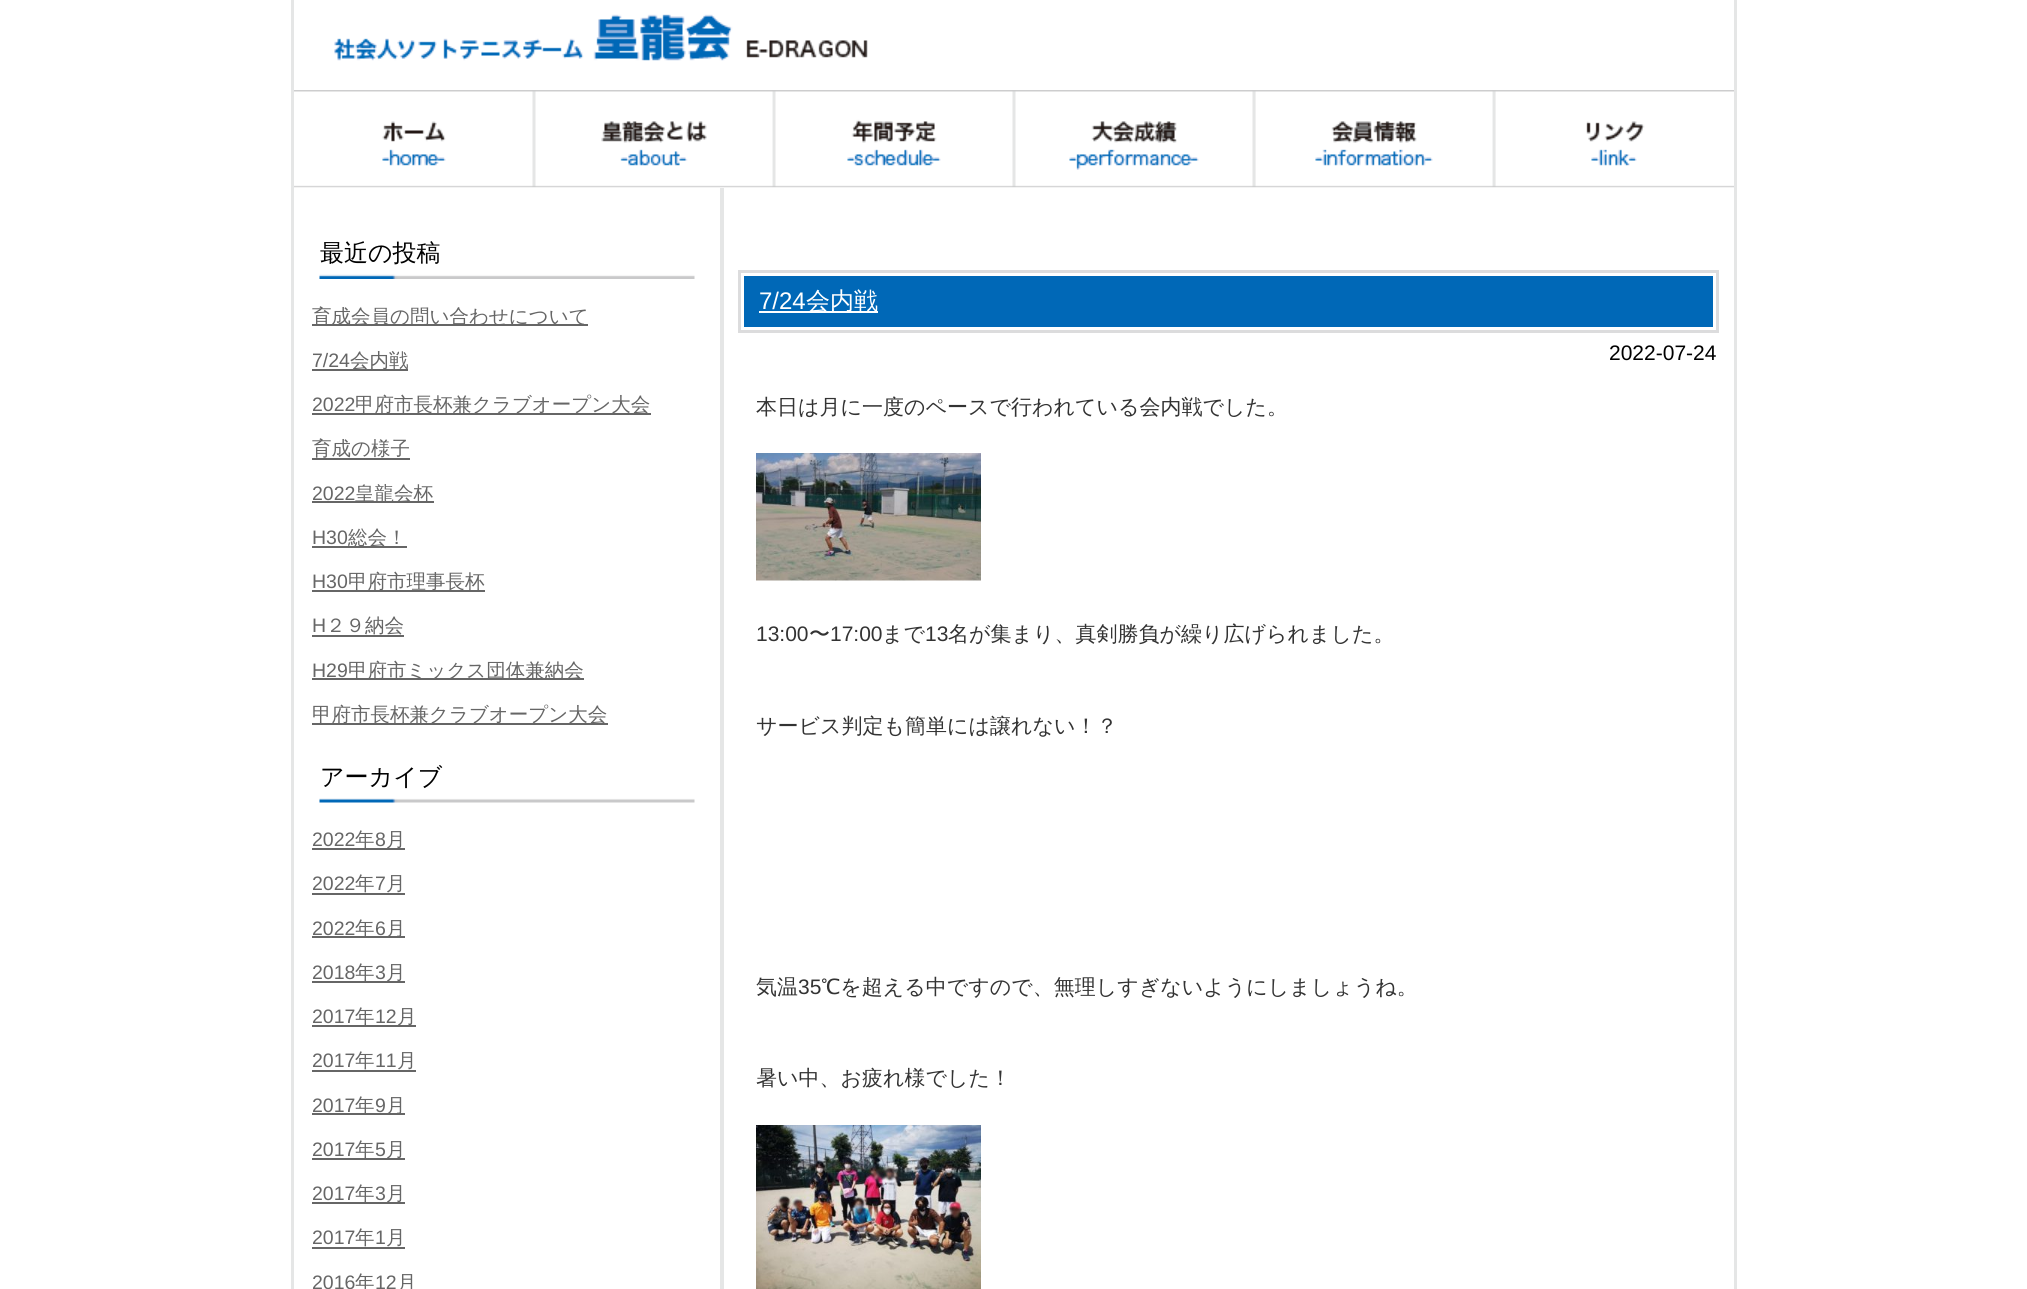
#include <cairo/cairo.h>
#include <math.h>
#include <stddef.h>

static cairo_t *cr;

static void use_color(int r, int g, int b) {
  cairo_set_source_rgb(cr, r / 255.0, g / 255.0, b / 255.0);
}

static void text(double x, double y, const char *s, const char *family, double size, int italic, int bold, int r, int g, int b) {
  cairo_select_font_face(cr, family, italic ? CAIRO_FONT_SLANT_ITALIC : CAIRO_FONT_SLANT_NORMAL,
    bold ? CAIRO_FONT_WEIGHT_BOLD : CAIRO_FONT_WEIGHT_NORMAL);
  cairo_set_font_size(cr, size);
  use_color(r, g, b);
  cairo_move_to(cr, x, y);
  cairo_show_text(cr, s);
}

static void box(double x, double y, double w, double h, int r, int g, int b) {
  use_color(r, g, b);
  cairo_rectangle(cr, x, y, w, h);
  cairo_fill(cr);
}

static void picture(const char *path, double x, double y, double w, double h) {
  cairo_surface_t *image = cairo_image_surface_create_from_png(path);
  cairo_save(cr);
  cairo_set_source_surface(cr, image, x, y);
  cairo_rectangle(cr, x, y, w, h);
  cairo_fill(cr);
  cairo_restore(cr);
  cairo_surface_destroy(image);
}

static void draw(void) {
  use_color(255, 255, 255);
  cairo_paint(cr);
  box(720, 188, 4, 1101, 229, 230, 230);
  picture("img_08.png", 319, 274, 376, 5);
  box(312, 324, 276, 2, 102, 102, 102);
  box(312, 369, 96, 2, 102, 102, 102);
  box(312, 413, 339, 2, 102, 102, 102);
  box(312, 458, 98, 2, 102, 102, 102);
  box(312, 501, 122, 2, 102, 102, 102);
  box(312, 546, 95, 2, 102, 102, 102);
  box(312, 590, 173, 2, 102, 102, 102);
  box(312, 635, 92, 2, 102, 102, 102);
  box(312, 678, 272, 2, 102, 102, 102);
  box(312, 723, 296, 2, 102, 102, 102);
  picture("img_09.png", 319, 798, 376, 5);
  box(312, 848, 93, 2, 102, 102, 102);
  box(312, 893, 93, 2, 102, 102, 102);
  box(312, 936, 93, 2, 102, 102, 102);
  box(312, 981, 93, 2, 102, 102, 102);
  box(312, 1025, 104, 2, 102, 102, 102);
  box(312, 1070, 104, 2, 102, 102, 102);
  box(312, 1113, 93, 2, 102, 102, 102);
  box(312, 1158, 93, 2, 102, 102, 102);
  box(312, 1202, 93, 2, 102, 102, 102);
  box(312, 1247, 93, 2, 102, 102, 102);
  box(744, 276, 969, 51, 0, 104, 183);
  box(759, 311, 119, 2, 255, 255, 255);
  cairo_rectangle(cr, 739.5, 271.5, 978, 60);
  use_color(220, 220, 221);
  cairo_set_line_width(cr, 3);
  cairo_stroke(cr);
  picture("img_10.png", 756, 453, 225, 128);
  picture("img_11.png", 756, 1125, 225, 164);
  cairo_rectangle(cr, 292.5, -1.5, 1443, 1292);
  use_color(229, 230, 230);
  cairo_stroke(cr);
  picture("img_01.png", 294, 0, 1440, 61);
  picture("img_02.png", 294, 90, 240, 98);
  picture("img_03.png", 534, 90, 240, 98);
  picture("img_04.png", 774, 90, 240, 98);
  picture("img_05.png", 1014, 90, 240, 98);
  picture("img_06.png", 1254, 90, 240, 98);
  picture("img_07.png", 1494, 90, 240, 98);
  text(320, 261, "最近の投稿", "WenQuanYi Zen Hei Medium", 24, 0, 0, 0, 0, 0);
  text(312, 323, "育成会員の問い合わせについて", "WenQuanYi Zen Hei Medium", 19.5, 0, 0, 102, 102, 102);
  text(312, 367, "7/24", "Liberation Sans", 19.5, 0, 0, 102, 102, 102);
  text(350, 367, "会内戦", "WenQuanYi Zen Hei Medium", 19.5, 0, 0, 102, 102, 102);
  text(312, 411, "2022", "Liberation Sans", 19.5, 0, 0, 102, 102, 102);
  text(355, 411, "甲府市長杯兼クラブオープン大会", "WenQuanYi Zen Hei Medium", 19.5, 0, 0, 102, 102, 102);
  text(312, 455, "育成の様子", "WenQuanYi Zen Hei Medium", 19.5, 0, 0, 102, 102, 102);
  text(312, 500, "2022", "Liberation Sans", 19.5, 0, 0, 102, 102, 102);
  text(355, 500, "皇龍会杯", "WenQuanYi Zen Hei Medium", 19.5, 0, 0, 102, 102, 102);
  text(312, 544, "H30", "Liberation Sans", 19.5, 0, 0, 102, 102, 102);
  text(348, 544, "総会！", "WenQuanYi Zen Hei Medium", 19.5, 0, 0, 102, 102, 102);
  text(312, 588, "H30", "Liberation Sans", 19.5, 0, 0, 102, 102, 102);
  text(348, 588, "甲府市理事長杯", "WenQuanYi Zen Hei Medium", 19.5, 0, 0, 102, 102, 102);
  text(312, 632, "H", "Liberation Sans", 19.5, 0, 0, 102, 102, 102);
  text(326, 632, "２９納会", "WenQuanYi Zen Hei Medium", 19.5, 0, 0, 102, 102, 102);
  text(312, 677, "H29", "Liberation Sans", 19.5, 0, 0, 102, 102, 102);
  text(348, 677, "甲府市ミックス団体兼納会", "WenQuanYi Zen Hei Medium", 19.5, 0, 0, 102, 102, 102);
  text(312, 721, "甲府市長杯兼クラブオープン大会", "WenQuanYi Zen Hei Medium", 19.5, 0, 0, 102, 102, 102);
  text(320, 785, "アーカイブ", "WenQuanYi Zen Hei Medium", 24, 0, 0, 0, 0, 0);
  text(312, 846, "2022", "Liberation Sans", 19.5, 0, 0, 102, 102, 102);
  text(355, 846, "年", "WenQuanYi Zen Hei Medium", 19.5, 0, 0, 102, 102, 102);
  text(375, 846, "8", "Liberation Sans", 19.5, 0, 0, 102, 102, 102);
  text(386, 846, "月", "WenQuanYi Zen Hei Medium", 19.5, 0, 0, 102, 102, 102);
  text(312, 890, "2022", "Liberation Sans", 19.5, 0, 0, 102, 102, 102);
  text(355, 890, "年", "WenQuanYi Zen Hei Medium", 19.5, 0, 0, 102, 102, 102);
  text(375, 890, "7", "Liberation Sans", 19.5, 0, 0, 102, 102, 102);
  text(386, 890, "月", "WenQuanYi Zen Hei Medium", 19.5, 0, 0, 102, 102, 102);
  text(312, 935, "2022", "Liberation Sans", 19.5, 0, 0, 102, 102, 102);
  text(355, 935, "年", "WenQuanYi Zen Hei Medium", 19.5, 0, 0, 102, 102, 102);
  text(375, 935, "6", "Liberation Sans", 19.5, 0, 0, 102, 102, 102);
  text(386, 935, "月", "WenQuanYi Zen Hei Medium", 19.5, 0, 0, 102, 102, 102);
  text(312, 979, "2018", "Liberation Sans", 19.5, 0, 0, 102, 102, 102);
  text(355, 979, "年", "WenQuanYi Zen Hei Medium", 19.5, 0, 0, 102, 102, 102);
  text(375, 979, "3", "Liberation Sans", 19.5, 0, 0, 102, 102, 102);
  text(386, 979, "月", "WenQuanYi Zen Hei Medium", 19.5, 0, 0, 102, 102, 102);
  text(312, 1023, "2017", "Liberation Sans", 19.5, 0, 0, 102, 102, 102);
  text(355, 1023, "年", "WenQuanYi Zen Hei Medium", 19.5, 0, 0, 102, 102, 102);
  text(375, 1023, "12", "Liberation Sans", 19.5, 0, 0, 102, 102, 102);
  text(397, 1023, "月", "WenQuanYi Zen Hei Medium", 19.5, 0, 0, 102, 102, 102);
  text(312, 1067, "2017", "Liberation Sans", 19.5, 0, 0, 102, 102, 102);
  text(355, 1067, "年", "WenQuanYi Zen Hei Medium", 19.5, 0, 0, 102, 102, 102);
  text(375, 1067, "11", "Liberation Sans", 19.5, 0, 0, 102, 102, 102);
  text(397, 1067, "月", "WenQuanYi Zen Hei Medium", 19.5, 0, 0, 102, 102, 102);
  text(312, 1112, "2017", "Liberation Sans", 19.5, 0, 0, 102, 102, 102);
  text(355, 1112, "年", "WenQuanYi Zen Hei Medium", 19.5, 0, 0, 102, 102, 102);
  text(375, 1112, "9", "Liberation Sans", 19.5, 0, 0, 102, 102, 102);
  text(386, 1112, "月", "WenQuanYi Zen Hei Medium", 19.5, 0, 0, 102, 102, 102);
  text(312, 1156, "2017", "Liberation Sans", 19.5, 0, 0, 102, 102, 102);
  text(355, 1156, "年", "WenQuanYi Zen Hei Medium", 19.5, 0, 0, 102, 102, 102);
  text(375, 1156, "5", "Liberation Sans", 19.5, 0, 0, 102, 102, 102);
  text(386, 1156, "月", "WenQuanYi Zen Hei Medium", 19.5, 0, 0, 102, 102, 102);
  text(312, 1200, "2017", "Liberation Sans", 19.5, 0, 0, 102, 102, 102);
  text(355, 1200, "年", "WenQuanYi Zen Hei Medium", 19.5, 0, 0, 102, 102, 102);
  text(375, 1200, "3", "Liberation Sans", 19.5, 0, 0, 102, 102, 102);
  text(386, 1200, "月", "WenQuanYi Zen Hei Medium", 19.5, 0, 0, 102, 102, 102);
  text(312, 1244, "2017", "Liberation Sans", 19.5, 0, 0, 102, 102, 102);
  text(355, 1244, "年", "WenQuanYi Zen Hei Medium", 19.5, 0, 0, 102, 102, 102);
  text(375, 1244, "1", "Liberation Sans", 19.5, 0, 0, 102, 102, 102);
  text(386, 1244, "月", "WenQuanYi Zen Hei Medium", 19.5, 0, 0, 102, 102, 102);
  text(312, 1289, "2016", "Liberation Sans", 19.5, 0, 0, 102, 102, 102);
  text(355, 1289, "年", "WenQuanYi Zen Hei Medium", 19.5, 0, 0, 102, 102, 102);
  text(375, 1289, "12", "Liberation Sans", 19.5, 0, 0, 102, 102, 102);
  text(397, 1289, "月", "WenQuanYi Zen Hei Medium", 19.5, 0, 0, 102, 102, 102);
  text(759, 309, "7/24", "Liberation Sans", 24, 0, 0, 255, 255, 255);
  text(806, 309, "会内戦", "WenQuanYi Zen Hei Medium", 24, 0, 0, 255, 255, 255);
  text(1609, 360, "2022-07-24", "Liberation Sans", 21, 0, 0, 0, 0, 0);
  text(756, 414, "本日は月に一度のペースで行われている会内戦でした。", "WenQuanYi Zen Hei Medium", 21, 0, 0, 51, 51, 51);
  text(756, 641, "13:00", "Liberation Sans", 21, 0, 0, 51, 51, 51);
  text(809, 641, "〜", "WenQuanYi Zen Hei Medium", 21, 0, 0, 51, 51, 51);
  text(830, 641, "17:00", "Liberation Sans", 21, 0, 0, 51, 51, 51);
  text(882, 641, "まで", "WenQuanYi Zen Hei Medium", 21, 0, 0, 51, 51, 51);
  text(925, 641, "13", "Liberation Sans", 21, 0, 0, 51, 51, 51);
  text(948, 641, "名が集まり、真剣勝負が繰り広げられました。", "WenQuanYi Zen Hei Medium", 21, 0, 0, 51, 51, 51);
  text(756, 733, "サービス判定も簡単には譲れない！？", "WenQuanYi Zen Hei Medium", 21, 0, 0, 51, 51, 51);
  text(756, 994, "気温", "WenQuanYi Zen Hei Medium", 21, 0, 0, 51, 51, 51);
  text(798, 994, "35", "Liberation Sans", 21, 0, 0, 51, 51, 51);
  text(821, 994, "℃を超える中ですので、無理しすぎないようにしましょうね。", "WenQuanYi Zen Hei Medium", 21, 0, 0, 51, 51, 51);
  text(756, 1085, "暑い中、お疲れ様でした！", "WenQuanYi Zen Hei Medium", 21, 0, 0, 51, 51, 51);
}

int main(void) {
  cairo_surface_t *surface = cairo_image_surface_create(CAIRO_FORMAT_RGB24, 2027, 1289);
  cr = cairo_create(surface);
  cairo_font_options_t *options = cairo_font_options_create();
  cairo_font_options_set_hint_metrics(options, CAIRO_HINT_METRICS_OFF);
  cairo_font_options_set_hint_style(options, CAIRO_HINT_STYLE_NONE);
  cairo_set_font_options(cr, options);
  cairo_set_miter_limit(cr, 4);
  draw();
  cairo_surface_write_to_png(surface, "out.png");
  cairo_font_options_destroy(options);
  cairo_destroy(cr);
  cairo_surface_destroy(surface);
  return 0;
}
